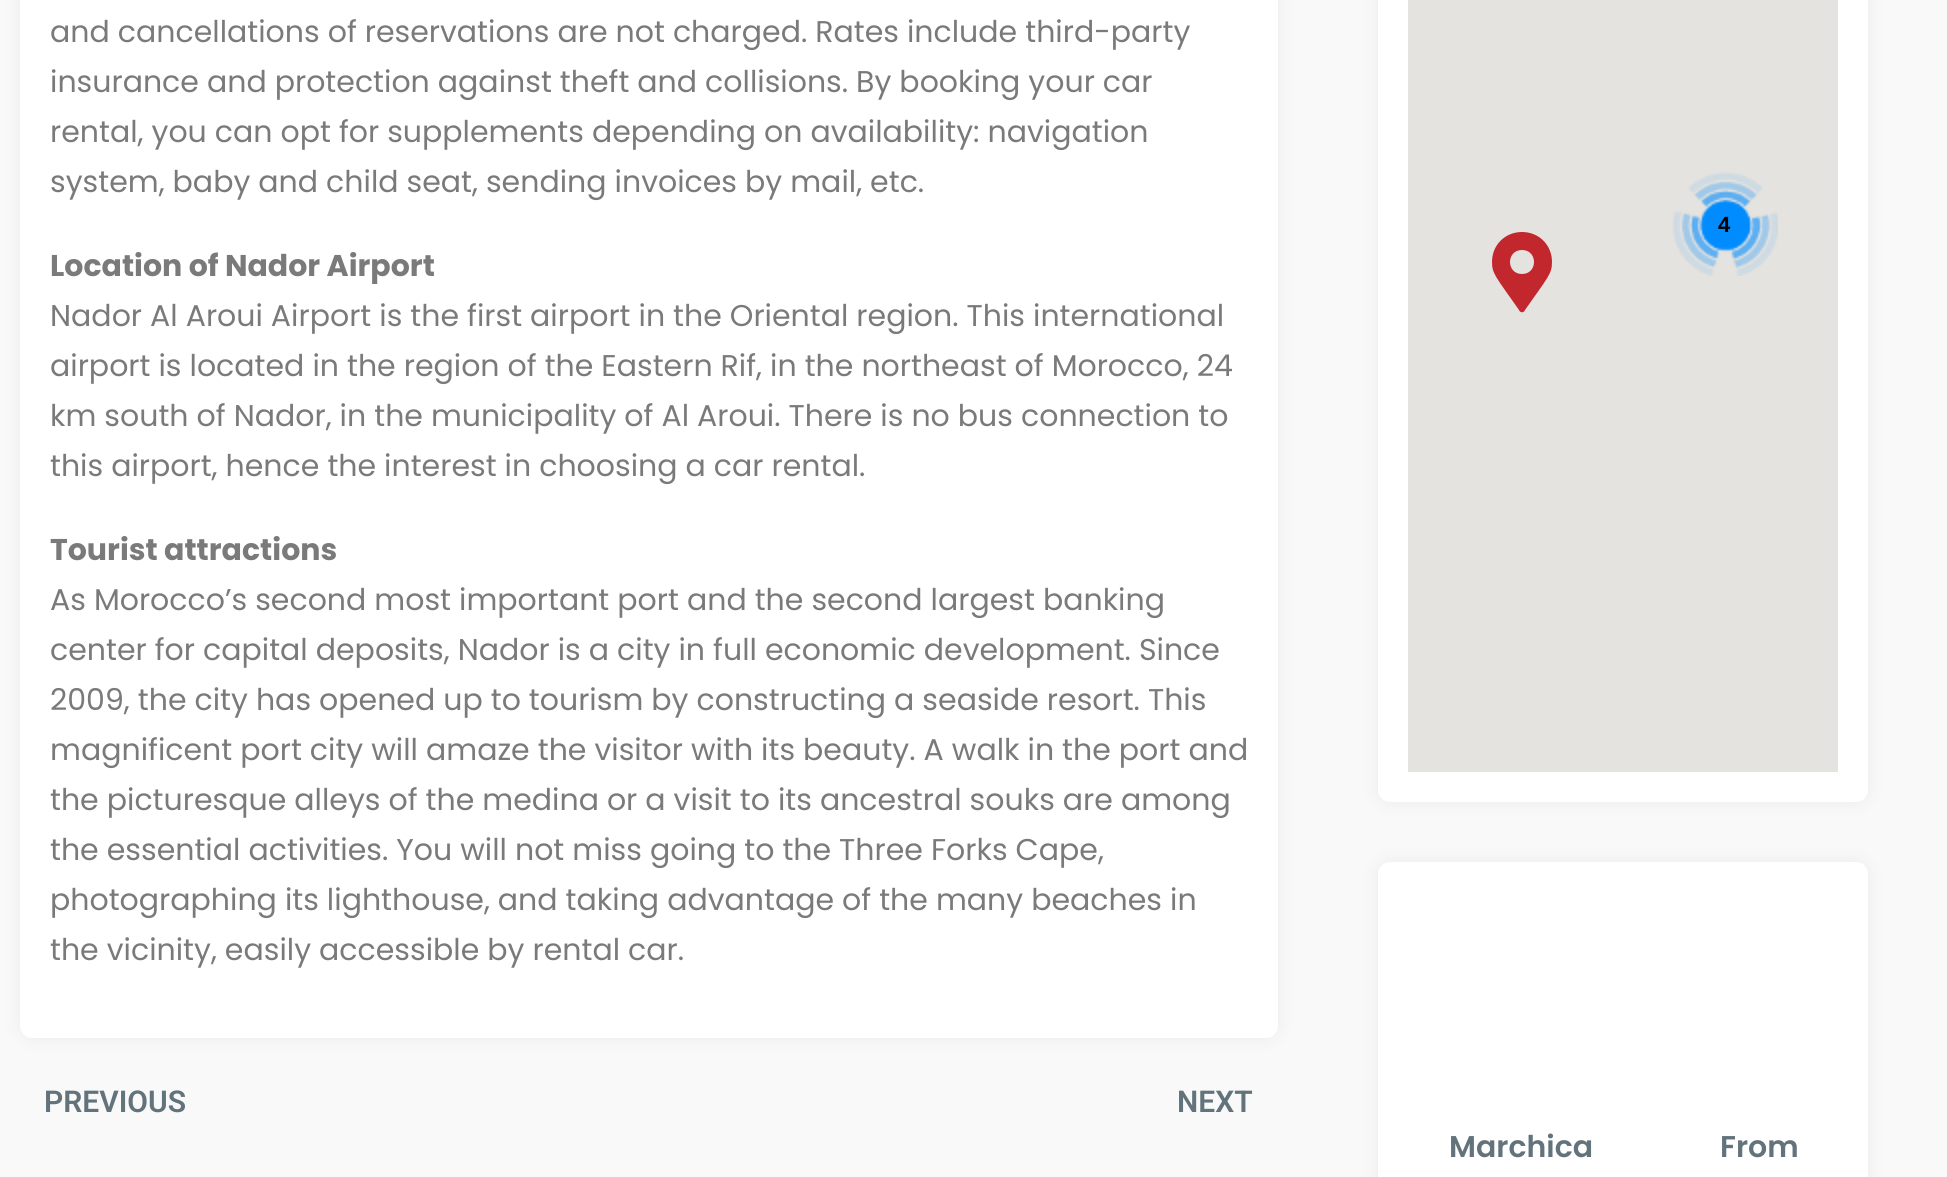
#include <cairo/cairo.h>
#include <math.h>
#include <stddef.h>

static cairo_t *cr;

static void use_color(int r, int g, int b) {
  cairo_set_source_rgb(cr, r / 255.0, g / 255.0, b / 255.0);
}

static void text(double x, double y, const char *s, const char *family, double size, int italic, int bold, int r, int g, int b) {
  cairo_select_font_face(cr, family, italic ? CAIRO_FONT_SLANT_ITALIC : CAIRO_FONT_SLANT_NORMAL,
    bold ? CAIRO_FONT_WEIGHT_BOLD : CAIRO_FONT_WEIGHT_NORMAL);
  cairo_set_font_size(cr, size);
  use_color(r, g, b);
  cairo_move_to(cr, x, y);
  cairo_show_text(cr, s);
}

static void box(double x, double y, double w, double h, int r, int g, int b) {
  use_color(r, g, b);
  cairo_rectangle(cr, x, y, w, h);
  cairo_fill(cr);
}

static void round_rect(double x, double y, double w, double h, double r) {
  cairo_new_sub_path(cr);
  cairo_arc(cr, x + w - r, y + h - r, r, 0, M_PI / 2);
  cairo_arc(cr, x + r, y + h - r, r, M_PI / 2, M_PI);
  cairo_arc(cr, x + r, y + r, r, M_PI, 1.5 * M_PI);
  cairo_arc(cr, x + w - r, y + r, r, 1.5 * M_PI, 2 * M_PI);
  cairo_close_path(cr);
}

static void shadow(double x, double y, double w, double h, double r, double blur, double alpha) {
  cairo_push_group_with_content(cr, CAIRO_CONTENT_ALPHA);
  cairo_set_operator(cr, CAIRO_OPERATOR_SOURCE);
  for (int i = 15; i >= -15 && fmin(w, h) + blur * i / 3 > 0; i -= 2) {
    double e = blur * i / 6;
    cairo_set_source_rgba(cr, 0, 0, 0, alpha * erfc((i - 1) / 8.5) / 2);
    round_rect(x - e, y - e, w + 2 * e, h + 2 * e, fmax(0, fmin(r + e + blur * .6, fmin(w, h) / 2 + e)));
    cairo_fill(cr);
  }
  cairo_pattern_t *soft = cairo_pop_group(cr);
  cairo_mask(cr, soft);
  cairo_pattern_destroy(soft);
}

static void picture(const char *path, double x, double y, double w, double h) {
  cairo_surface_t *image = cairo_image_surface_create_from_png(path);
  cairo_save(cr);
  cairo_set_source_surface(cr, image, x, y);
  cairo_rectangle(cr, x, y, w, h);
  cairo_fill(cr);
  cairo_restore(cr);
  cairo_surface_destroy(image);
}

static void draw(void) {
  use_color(249, 249, 249);
  cairo_paint(cr);
  use_color(0, 0, 0);
  shadow(20, -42, 1258, 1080, 12, 10, 0.06);
  use_color(255, 255, 255);
  cairo_new_path(cr);
  cairo_move_to(cr, 20, -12);
  cairo_line_to(cr, 1278, -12);
  cairo_line_to(cr, 1278, 1026);
  cairo_curve_to(cr, 1278, 1032.5, 1272.5, 1038, 1266, 1038);
  cairo_line_to(cr, 32, 1038);
  cairo_curve_to(cr, 25.5, 1038, 20, 1032.5, 20, 1026);
  cairo_close_path(cr);
  cairo_fill(cr);
  use_color(0, 0, 0);
  shadow(1378, -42, 490, 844, 12, 10, 0.06);
  use_color(255, 255, 255);
  round_rect(1378, -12, 490, 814, 12);
  cairo_fill(cr);
  box(1408, 0, 430, 772, 229, 227, 223);
  picture("img_01.png", 1672, 172, 106, 104);
  use_color(193, 39, 45);
  cairo_new_path(cr);
  cairo_move_to(cr, 1519, 310);
  cairo_curve_to(cr, 1496, 277, 1492, 274, 1492, 262);
  cairo_curve_to(cr, 1492, 245, 1505, 232, 1522, 232);
  cairo_curve_to(cr, 1539, 232, 1552, 245, 1552, 262);
  cairo_curve_to(cr, 1552, 274, 1548, 277, 1525, 310);
  cairo_curve_to(cr, 1524, 313, 1520, 313, 1519, 310);
  cairo_close_path(cr);
  cairo_move_to(cr, 1522, 274);
  cairo_curve_to(cr, 1538, 274, 1538, 250, 1522, 250);
  cairo_curve_to(cr, 1506, 250, 1506, 274, 1522, 274);
  cairo_close_path(cr);
  cairo_fill(cr);
  use_color(0, 0, 0);
  shadow(1378, 862, 490, 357, 12, 10, 0.06);
  use_color(255, 255, 255);
  round_rect(1378, 862, 490, 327, 12);
  cairo_fill(cr);
  text(50, 42, "and cancellations of reservations are not charged. Rates include third-party", "Poppins", 30, 0, 0, 122, 122, 122);
  text(50, 92, "insurance and protection against theft and collisions. By booking your car", "Poppins", 30, 0, 0, 122, 122, 122);
  text(50, 142, "rental, you can opt for supplements depending on availability: navigation", "Poppins", 30, 0, 0, 122, 122, 122);
  text(50, 192, "system, baby and child seat, sending invoices by mail, etc.", "Poppins", 30, 0, 0, 122, 122, 122);
  text(50, 276, "Location of Nador Airport", "Poppins", 30, 0, 1, 122, 122, 122);
  text(50, 326, "Nador Al Aroui Airport is the first airport in the Oriental region. This international", "Poppins", 30, 0, 0, 122, 122, 122);
  text(50, 376, "airport is located in the region of the Eastern Rif, in the northeast of Morocco, 24", "Poppins", 30, 0, 0, 122, 122, 122);
  text(50, 426, "km south of Nador, in the municipality of Al Aroui. There is no bus connection to", "Poppins", 30, 0, 0, 122, 122, 122);
  text(50, 476, "this airport, hence the interest in choosing a car rental.", "Poppins", 30, 0, 0, 122, 122, 122);
  text(50, 560, "Tourist attractions", "Poppins", 30, 0, 1, 122, 122, 122);
  text(50, 610, "As Morocco’s second most important port and the second largest banking", "Poppins", 30, 0, 0, 122, 122, 122);
  text(50, 660, "center for capital deposits, Nador is a city in full economic development. Since", "Poppins", 30, 0, 0, 122, 122, 122);
  text(50, 710, "2009, the city has opened up to tourism by constructing a seaside resort. This", "Poppins", 30, 0, 0, 122, 122, 122);
  text(50, 760, "magnificent port city will amaze the visitor with its beauty. A walk in the port and", "Poppins", 30, 0, 0, 122, 122, 122);
  text(50, 810, "the picturesque alleys of the medina or a visit to its ancestral souks are among", "Poppins", 30, 0, 0, 122, 122, 122);
  text(50, 860, "the essential activities. You will not miss going to the Three Forks Cape,", "Poppins", 30, 0, 0, 122, 122, 122);
  text(50, 910, "photographing its lighthouse, and taking advantage of the many beaches in", "Poppins", 30, 0, 0, 122, 122, 122);
  text(50, 960, "the vicinity, easily accessible by rental car.", "Poppins", 30, 0, 0, 122, 122, 122);
  text(44, 1112, "PREVIOUS", "Roboto SemiBold", 30, 0, 0, 98, 115, 123);
  text(1177, 1112, "NEXT", "Roboto SemiBold", 30, 0, 0, 98, 115, 123);
  text(1718, 232, "4", "Liberation Sans", 22, 0, 1, 0, 0, 0);
  text(1449, 1157, "Marchica", "Poppins SemiBold", 30, 0, 0, 98, 115, 123);
  text(1720, 1157, "From", "Poppins SemiBold", 30, 0, 0, 98, 115, 123);
}

int main(void) {
  cairo_surface_t *surface = cairo_image_surface_create(CAIRO_FORMAT_RGB24, 1947, 1177);
  cr = cairo_create(surface);
  cairo_font_options_t *options = cairo_font_options_create();
  cairo_font_options_set_hint_metrics(options, CAIRO_HINT_METRICS_OFF);
  cairo_font_options_set_hint_style(options, CAIRO_HINT_STYLE_NONE);
  cairo_set_font_options(cr, options);
  cairo_set_miter_limit(cr, 4);
  draw();
  cairo_surface_write_to_png(surface, "out.png");
  cairo_font_options_destroy(options);
  cairo_destroy(cr);
  cairo_surface_destroy(surface);
  return 0;
}
